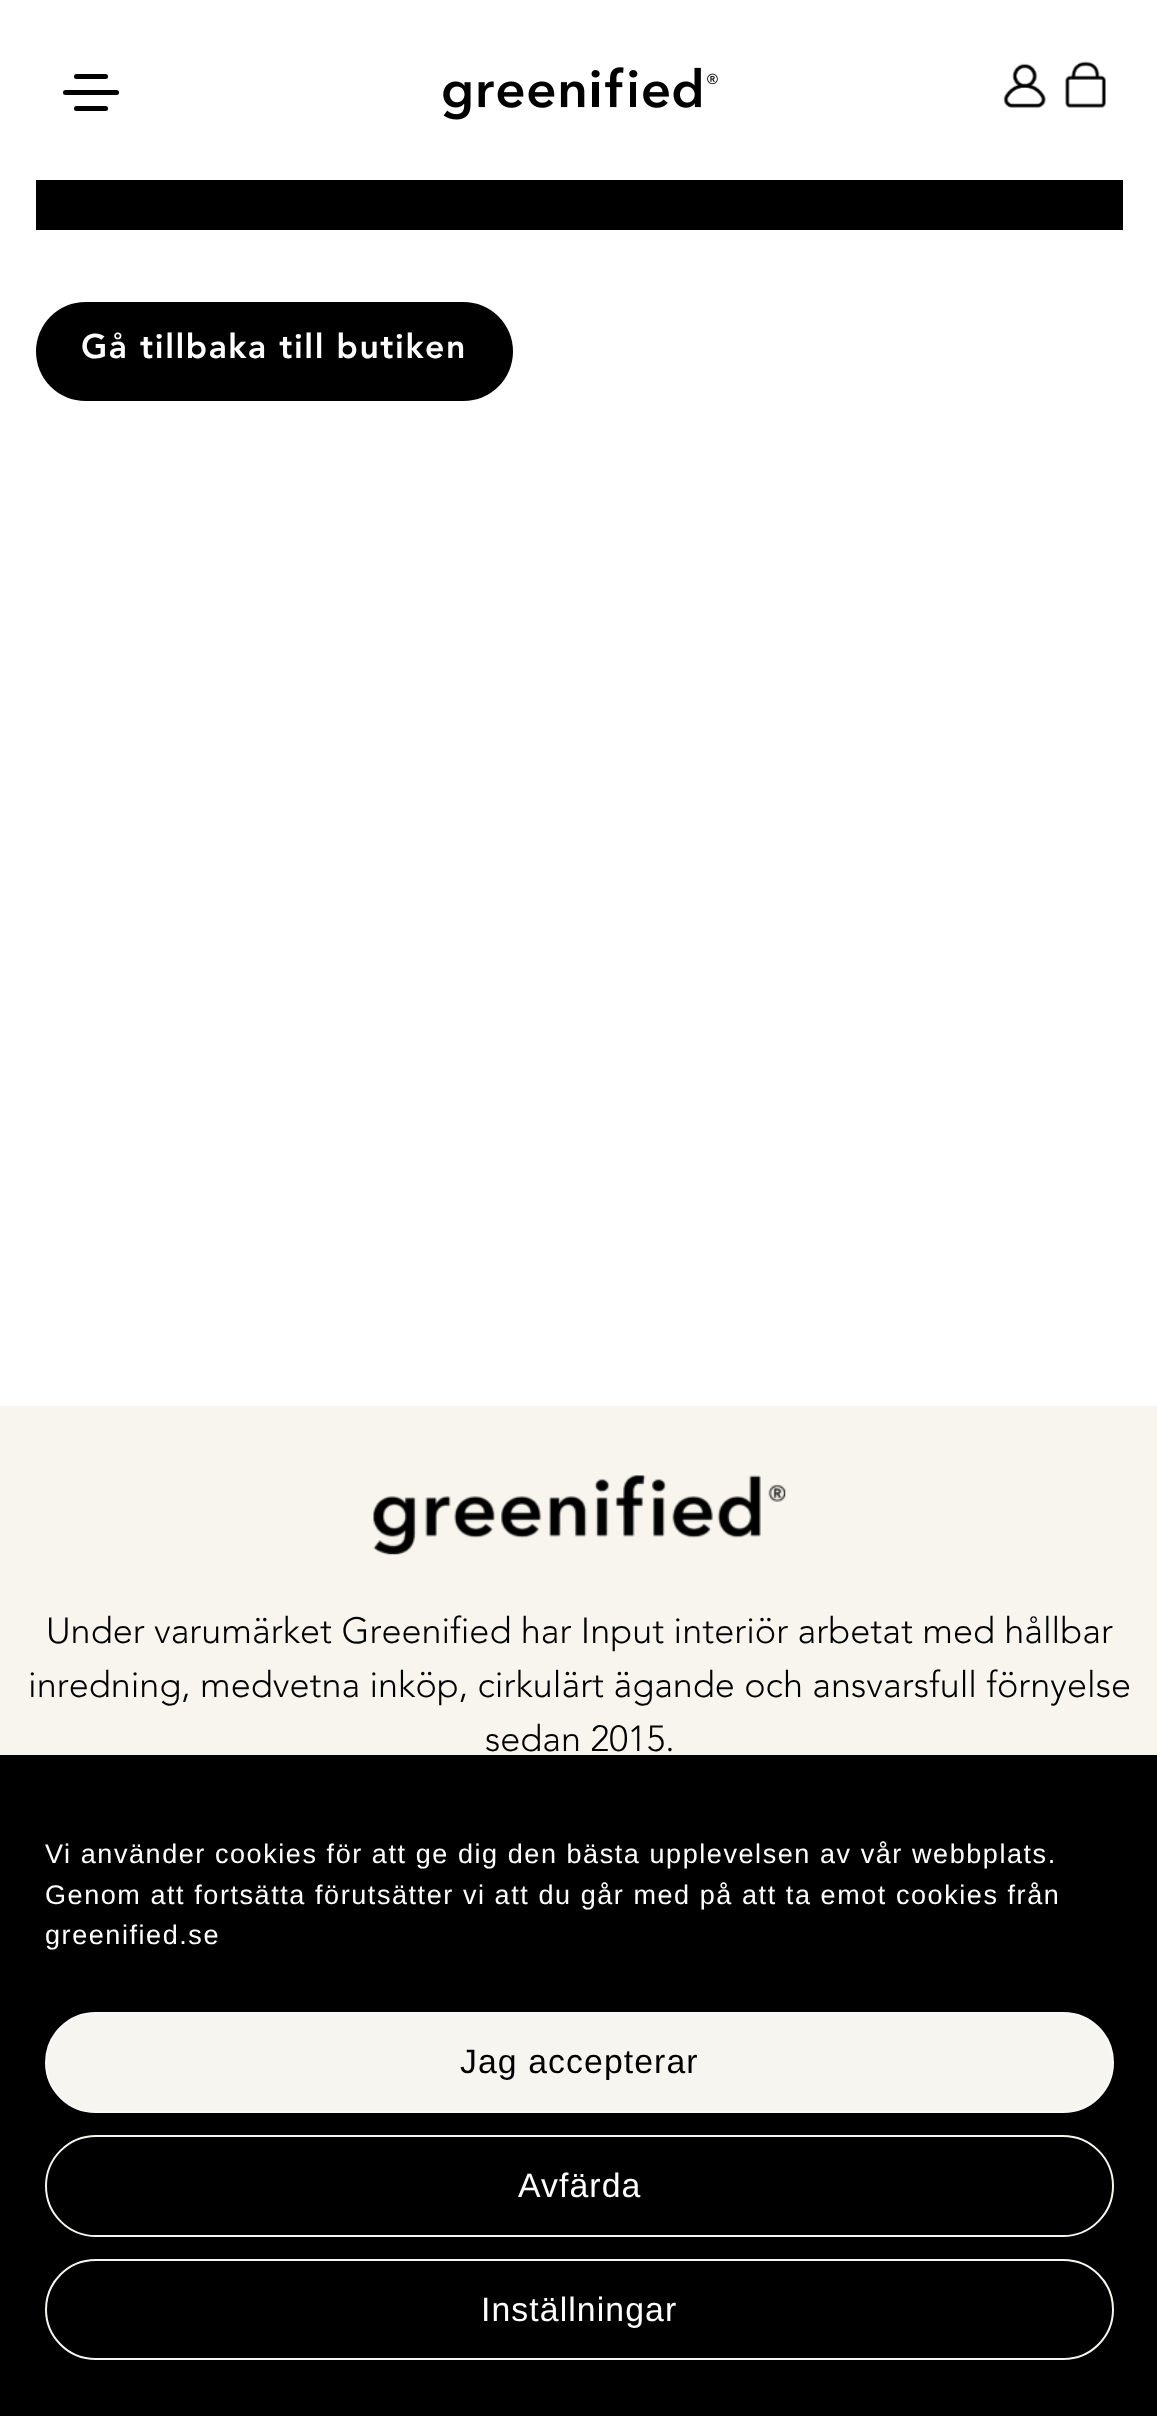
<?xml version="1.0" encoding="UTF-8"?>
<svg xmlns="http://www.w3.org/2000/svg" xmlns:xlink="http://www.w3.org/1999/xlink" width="1157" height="2416">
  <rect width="100%" height="100%" fill="#ffffff" />
  <rect x="74" y="74" width="34" height="5" rx="2.5" fill="#000000" />
  <rect x="63" y="90" width="56" height="5" rx="2.5" fill="#000000" />
  <rect x="74" y="106" width="34" height="5" rx="2.5" fill="#000000" />
  <image x="443" y="67" width="275" height="53" xlink:href="image1.png" />
  <image x="1003" y="63" width="43" height="45" xlink:href="image2.png" />
  <image x="1065" y="61" width="41" height="47" xlink:href="image3.png" />
  <rect x="36" y="180" width="1087" height="50" fill="#000000" />
  <rect x="36" y="302" width="477" height="99" rx="49.5" fill="#000000" />
  <rect y="1406" width="1157" height="349" fill="#f7f5ee" />
  <image x="373" y="1475" width="413" height="80" xlink:href="image4.png" />
  <rect y="1755" width="1157" height="661" fill="#000000" />
  <rect x="46" y="2013" width="1067" height="99" rx="49.5" fill="#f6f5ef" stroke="#f9f9f9" stroke-width="2" />
  <rect x="46" y="2136" width="1067" height="100" rx="50" fill="none" stroke="#f6f5ef" stroke-width="2" />
  <rect x="46" y="2260" width="1067" height="99" rx="49.5" fill="none" stroke="#f6f5ef" stroke-width="2" />
  <text x="81" y="358" style="font-family: 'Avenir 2'; font-size: 33.75px; letter-spacing: 1.57px; fill: #ffffff">Gå tillbaka till butiken</text>
  <text x="46" y="1643" style="font-family: Avenir; font-size: 36px; fill: #000000">Under varumärket Greenified har Input interiör arbetat med hållbar</text>
  <text x="28" y="1697" style="font-family: Avenir; font-size: 36px; fill: #000000">inredning, medvetna inköp, cirkulärt ägande och ansvarsfull förnyelse</text>
  <text x="485" y="1751" style="font-family: Avenir; font-size: 36px; fill: #000000">sedan 2015.</text>
  <text x="45" y="1863" style="font-family: Liberation Sans; font-size: 27px; letter-spacing: 1.57px; fill: #ffffff">Vi använder cookies för att ge dig den bästa upplevelsen av vår webbplats.</text>
  <text x="45" y="1904" style="font-family: Liberation Sans; font-size: 27px; letter-spacing: 1.57px; fill: #ffffff">Genom att fortsätta förutsätter vi att du går med på att ta emot cookies från</text>
  <text x="45" y="1944" style="font-family: Liberation Sans; font-size: 27px; letter-spacing: 1.57px; fill: #ffffff">greenified.se</text>
  <text x="460" y="2073" style="font-family: Liberation Sans; font-size: 33.75px; letter-spacing: 1.1px; fill: #000000">Jag accepterar</text>
  <text x="518" y="2197" style="font-family: Liberation Sans; font-size: 33.75px; letter-spacing: 1.1px; fill: #ffffff">Avfärda</text>
  <text x="481" y="2321" style="font-family: Liberation Sans; font-size: 33.75px; letter-spacing: 1.1px; fill: #ffffff">Inställningar</text>
</svg>
